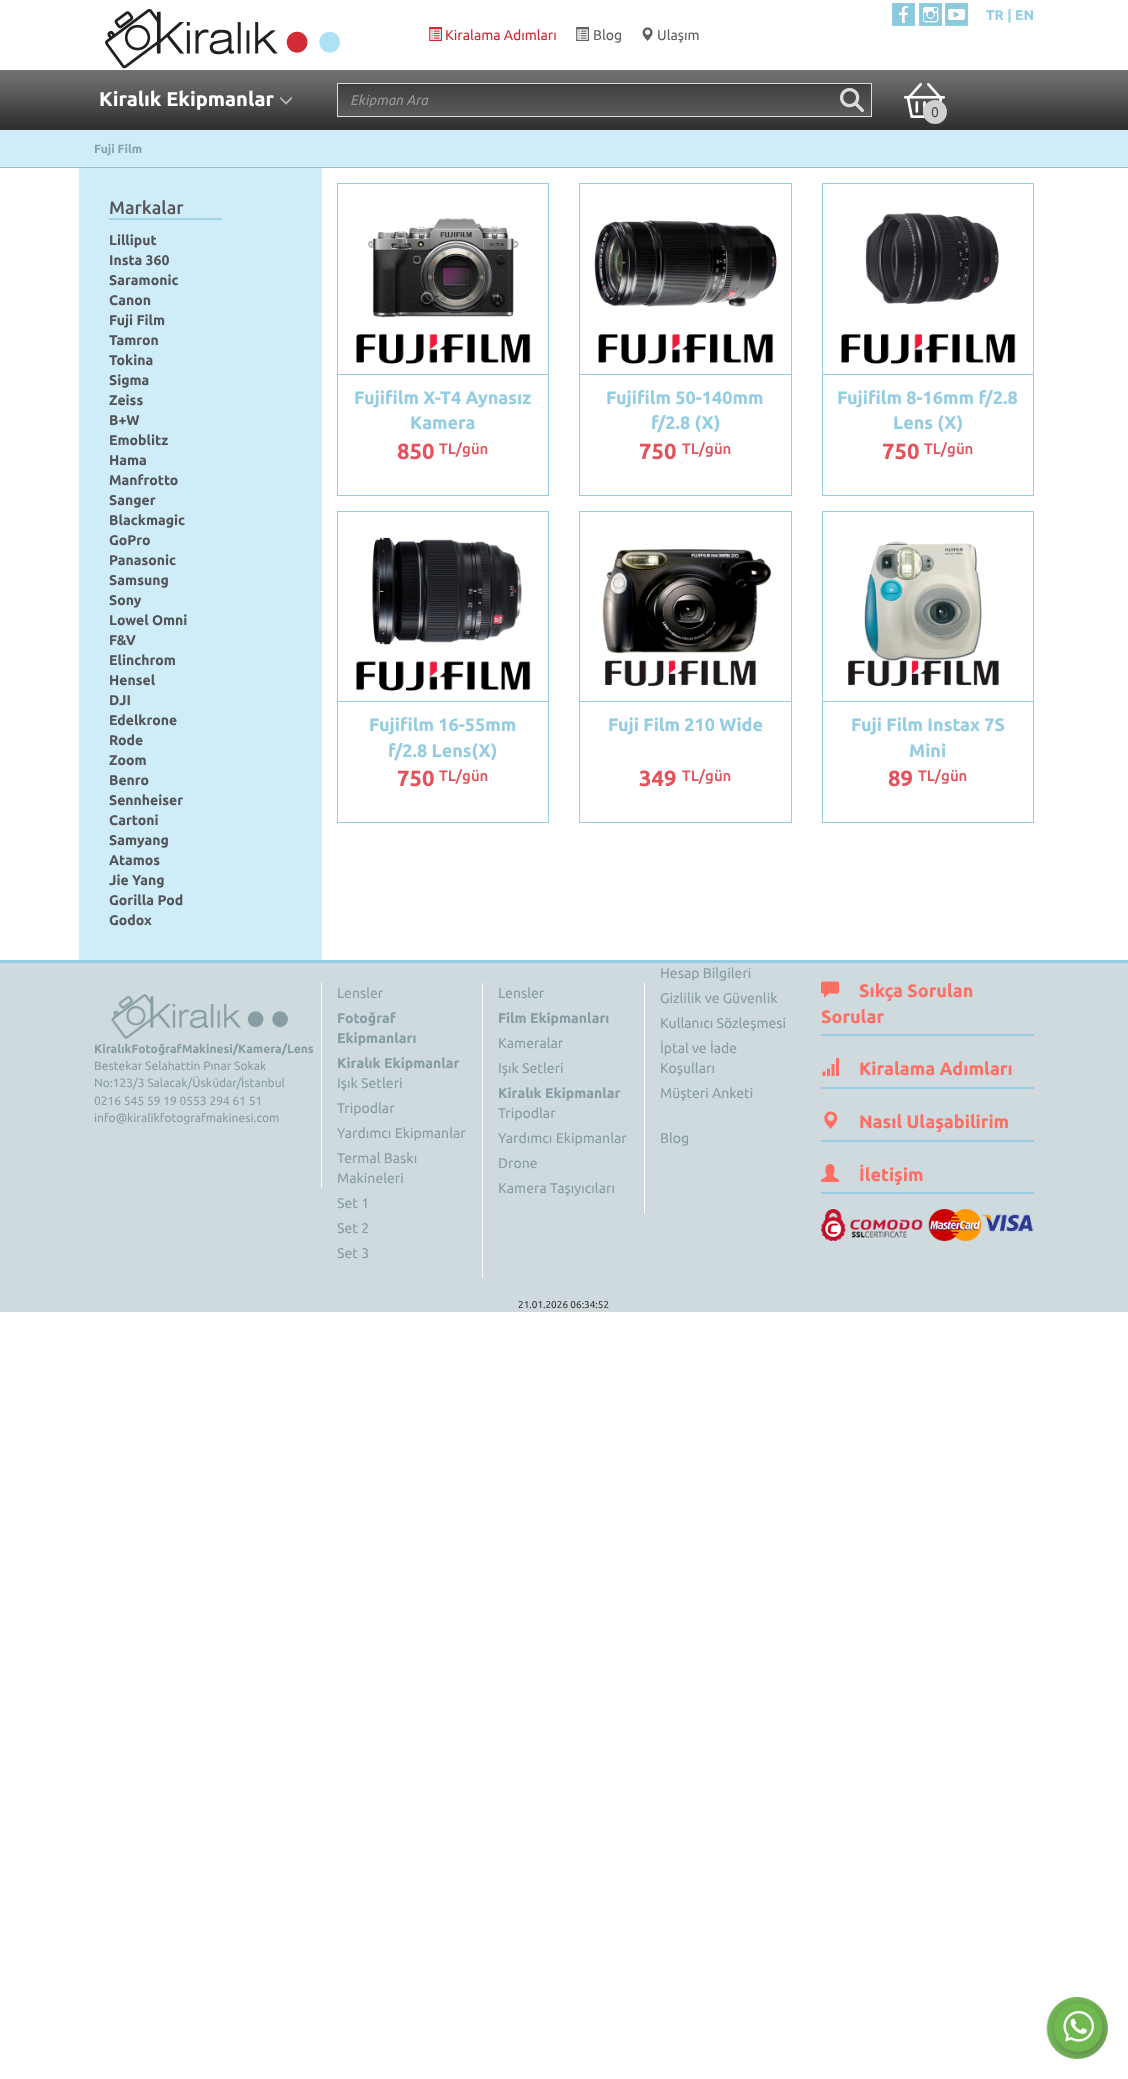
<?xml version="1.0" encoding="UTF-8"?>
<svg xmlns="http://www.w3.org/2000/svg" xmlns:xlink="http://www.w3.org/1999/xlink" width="1128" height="2079">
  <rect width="100%" height="100%" fill="#ffffff" />
  <image x="105" y="9" width="235" height="60" xlink:href="image1.png" />
  <image x="892" y="3" width="23" height="23" xlink:href="image2.png" />
  <image x="919" y="3" width="23" height="23" xlink:href="image3.png" />
  <image x="945" y="3" width="23" height="23" xlink:href="image4.png" />
  <image x="429" y="27" width="13" height="14" xlink:href="image5.png" />
  <image x="576" y="27" width="13" height="14" xlink:href="image6.png" />
  <image x="642" y="27" width="11" height="14" xlink:href="image7.png" />
  <image x="0" y="70" width="1128" height="60" xlink:href="image8.png" />
  <image x="280" y="96" width="12" height="9" xlink:href="image9.png" />
  <image x="338" y="85" width="533" height="31" xlink:href="image10.png" />
  <rect x="338" y="84" width="533" height="1" fill="#3c3c3b" />
  <rect x="337.5" y="83.5" width="534" height="33" fill="none" stroke="#dcdcdc" />
  <image x="840" y="88" width="24" height="24" xlink:href="image11.png" />
  <image x="904" y="83" width="41" height="35" xlink:href="image12.png" />
  <circle cx="935" cy="112" r="12" fill="#d0d0d0" />
  <rect y="130" width="1128" height="37" fill="#ceedf8" />
  <rect y="167" width="1128" height="1" fill="#9bbac4" />
  <rect x="79" y="168" width="243" height="792" fill="#ceedf8" />
  <rect x="109" y="218" width="113" height="2" fill="#a3d2e8" />
  <rect x="337.5" y="183.5" width="211" height="312" fill="none" stroke="#97cce5" />
  <image x="356" y="218" width="175" height="146" xlink:href="image13.png" />
  <rect x="338" y="374" width="210" height="1" fill="#97cce5" />
  <rect x="579.5" y="183.5" width="212" height="312" fill="none" stroke="#97cce5" />
  <image x="594" y="220" width="183" height="144" xlink:href="image14.png" />
  <rect x="580" y="374" width="211" height="1" fill="#97cce5" />
  <rect x="822.5" y="183.5" width="211" height="312" fill="none" stroke="#97cce5" />
  <image x="841" y="212" width="175" height="152" xlink:href="image15.png" />
  <rect x="823" y="374" width="210" height="1" fill="#97cce5" />
  <rect x="337.5" y="511.5" width="211" height="311" fill="none" stroke="#97cce5" />
  <image x="356" y="537" width="175" height="154" xlink:href="image16.png" />
  <rect x="338" y="701" width="210" height="1" fill="#97cce5" />
  <rect x="579.5" y="511.5" width="212" height="311" fill="none" stroke="#97cce5" />
  <image x="602" y="549" width="170" height="137" xlink:href="image17.png" />
  <rect x="580" y="701" width="211" height="1" fill="#97cce5" />
  <rect x="822.5" y="511.5" width="211" height="311" fill="none" stroke="#97cce5" />
  <image x="848" y="541" width="151" height="145" xlink:href="image18.png" />
  <rect x="823" y="701" width="210" height="1" fill="#97cce5" />
  <rect y="960" width="1128" height="3" fill="#97cce5" />
  <rect y="963" width="1128" height="349" fill="#cedade" />
  <rect x="321" y="983" width="1" height="205" fill="#ffffff" />
  <image x="111" y="994" width="177" height="45" xlink:href="image19.png" />
  <rect x="482" y="983" width="1" height="295" fill="#ffffff" />
  <rect x="644" y="983" width="1" height="230" fill="#ffffff" />
  <rect x="821" y="1034" width="213" height="2" fill="#97cce5" />
  <image x="821" y="981" width="18" height="17" xlink:href="image20.png" />
  <rect x="821" y="1087" width="213" height="2" fill="#97cce5" />
  <image x="822" y="1058" width="17" height="18" xlink:href="image21.png" />
  <rect x="821" y="1140" width="213" height="2" fill="#97cce5" />
  <image x="824" y="1111" width="14" height="18" xlink:href="image22.png" />
  <rect x="821" y="1192" width="213" height="2" fill="#97cce5" />
  <image x="821" y="1164" width="18" height="18" xlink:href="image23.png" />
  <image x="821" y="1209" width="213" height="32" xlink:href="image24.png" />
  <image x="1046" y="1997" width="62" height="62" xlink:href="image25.png" />
  <text x="986" y="20" style="font-family: Ubuntu; font-size: 14px; font-weight: bold; fill: #94cde2">TR |</text>
  <text x="1015" y="20" style="font-family: Ubuntu; font-size: 14px; font-weight: bold; fill: #94cde2">EN</text>
  <text x="445" y="40" style="font-family: Ubuntu; font-size: 14px; fill: #cf2b34">Kiralama Adımları</text>
  <text x="593" y="40" style="font-family: Ubuntu; font-size: 14px; fill: #5f5f5f">Blog</text>
  <text x="657" y="40" style="font-family: Ubuntu; font-size: 14px; fill: #5f5f5f">Ulaşım</text>
  <text x="99" y="106" style="font-family: Ubuntu; font-size: 20px; font-weight: bold; fill: #ffffff">Kiralık Ekipmanlar</text>
  <text x="350" y="105" style="font-family: Ubuntu; font-size: 14px; font-style: italic; fill: #999999">Ekipman Ara</text>
  <text x="931" y="117" style="font-family: Ubuntu; font-size: 14px; fill: #4b4b4b">0</text>
  <text x="94" y="153" style="font-family: Ubuntu; font-size: 12px; font-weight: bold; fill: #86a3ae">Fuji Film</text>
  <text x="109" y="214" style="font-family: Ubuntu; font-size: 18px; font-weight: 500; fill: #545459">Markalar</text>
  <text x="109" y="245" style="font-family: Ubuntu; font-size: 14px; font-weight: bold; fill: #545459">Lilliput</text>
  <text x="109" y="265" style="font-family: Ubuntu; font-size: 14px; font-weight: bold; fill: #545459">Insta 360</text>
  <text x="109" y="285" style="font-family: Ubuntu; font-size: 14px; font-weight: bold; fill: #545459">Saramonic</text>
  <text x="109" y="305" style="font-family: Ubuntu; font-size: 14px; font-weight: bold; fill: #545459">Canon</text>
  <text x="109" y="325" style="font-family: Ubuntu; font-size: 14px; font-weight: bold; fill: #545459">Fuji Film</text>
  <text x="109" y="345" style="font-family: Ubuntu; font-size: 14px; font-weight: bold; fill: #545459">Tamron</text>
  <text x="109" y="365" style="font-family: Ubuntu; font-size: 14px; font-weight: bold; fill: #545459">Tokina</text>
  <text x="109" y="385" style="font-family: Ubuntu; font-size: 14px; font-weight: bold; fill: #545459">Sigma</text>
  <text x="109" y="405" style="font-family: Ubuntu; font-size: 14px; font-weight: bold; fill: #545459">Zeiss</text>
  <text x="109" y="425" style="font-family: Ubuntu; font-size: 14px; font-weight: bold; fill: #545459">B+W</text>
  <text x="109" y="445" style="font-family: Ubuntu; font-size: 14px; font-weight: bold; fill: #545459">Emoblitz</text>
  <text x="109" y="465" style="font-family: Ubuntu; font-size: 14px; font-weight: bold; fill: #545459">Hama</text>
  <text x="109" y="485" style="font-family: Ubuntu; font-size: 14px; font-weight: bold; fill: #545459">Manfrotto</text>
  <text x="109" y="505" style="font-family: Ubuntu; font-size: 14px; font-weight: bold; fill: #545459">Sanger</text>
  <text x="109" y="525" style="font-family: Ubuntu; font-size: 14px; font-weight: bold; fill: #545459">Blackmagic</text>
  <text x="109" y="545" style="font-family: Ubuntu; font-size: 14px; font-weight: bold; fill: #545459">GoPro</text>
  <text x="109" y="565" style="font-family: Ubuntu; font-size: 14px; font-weight: bold; fill: #545459">Panasonic</text>
  <text x="109" y="585" style="font-family: Ubuntu; font-size: 14px; font-weight: bold; fill: #545459">Samsung</text>
  <text x="109" y="605" style="font-family: Ubuntu; font-size: 14px; font-weight: bold; fill: #545459">Sony</text>
  <text x="109" y="625" style="font-family: Ubuntu; font-size: 14px; font-weight: bold; fill: #545459">Lowel Omni</text>
  <text x="109" y="645" style="font-family: Ubuntu; font-size: 14px; font-weight: bold; fill: #545459">F&amp;V</text>
  <text x="109" y="665" style="font-family: Ubuntu; font-size: 14px; font-weight: bold; fill: #545459">Elinchrom</text>
  <text x="109" y="685" style="font-family: Ubuntu; font-size: 14px; font-weight: bold; fill: #545459">Hensel</text>
  <text x="109" y="705" style="font-family: Ubuntu; font-size: 14px; font-weight: bold; fill: #545459">DJI</text>
  <text x="109" y="725" style="font-family: Ubuntu; font-size: 14px; font-weight: bold; fill: #545459">Edelkrone</text>
  <text x="109" y="745" style="font-family: Ubuntu; font-size: 14px; font-weight: bold; fill: #545459">Rode</text>
  <text x="109" y="765" style="font-family: Ubuntu; font-size: 14px; font-weight: bold; fill: #545459">Zoom</text>
  <text x="109" y="785" style="font-family: Ubuntu; font-size: 14px; font-weight: bold; fill: #545459">Benro</text>
  <text x="109" y="805" style="font-family: Ubuntu; font-size: 14px; font-weight: bold; fill: #545459">Sennheiser</text>
  <text x="109" y="825" style="font-family: Ubuntu; font-size: 14px; font-weight: bold; fill: #545459">Cartoni</text>
  <text x="109" y="845" style="font-family: Ubuntu; font-size: 14px; font-weight: bold; fill: #545459">Samyang</text>
  <text x="109" y="865" style="font-family: Ubuntu; font-size: 14px; font-weight: bold; fill: #545459">Atamos</text>
  <text x="109" y="885" style="font-family: Ubuntu; font-size: 14px; font-weight: bold; fill: #545459">Jie Yang</text>
  <text x="109" y="905" style="font-family: Ubuntu; font-size: 14px; font-weight: bold; fill: #545459">Gorilla Pod</text>
  <text x="109" y="925" style="font-family: Ubuntu; font-size: 14px; font-weight: bold; fill: #545459">Godox</text>
  <text x="354" y="404" style="font-family: Ubuntu; font-size: 18px; font-weight: bold; fill: #94cde2">Fujifilm X-T4 Aynasız</text>
  <text x="410" y="429" style="font-family: Ubuntu; font-size: 18px; font-weight: bold; fill: #94cde2">Kamera</text>
  <text x="397" y="459" style="font-family: Ubuntu; font-size: 22px; font-weight: bold; fill: #e3535c">850</text>
  <text x="439" y="454" style="font-family: Ubuntu; font-size: 15px; font-weight: 500; fill: #e3535c">TL/gün</text>
  <text x="606" y="404" style="font-family: Ubuntu; font-size: 18px; font-weight: bold; fill: #94cde2">Fujifilm 50-140mm</text>
  <text x="651" y="429" style="font-family: Ubuntu; font-size: 18px; font-weight: bold; fill: #94cde2">f/2.8 (X)</text>
  <text x="639" y="459" style="font-family: Ubuntu; font-size: 22px; font-weight: bold; fill: #e3535c">750</text>
  <text x="682" y="454" style="font-family: Ubuntu; font-size: 15px; font-weight: 500; fill: #e3535c">TL/gün</text>
  <text x="837" y="404" style="font-family: Ubuntu; font-size: 18px; font-weight: bold; fill: #94cde2">Fujifilm 8-16mm f/2.8</text>
  <text x="893" y="429" style="font-family: Ubuntu; font-size: 18px; font-weight: bold; fill: #94cde2">Lens (X)</text>
  <text x="882" y="459" style="font-family: Ubuntu; font-size: 22px; font-weight: bold; fill: #e3535c">750</text>
  <text x="924" y="454" style="font-family: Ubuntu; font-size: 15px; font-weight: 500; fill: #e3535c">TL/gün</text>
  <text x="369" y="731" style="font-family: Ubuntu; font-size: 18px; font-weight: bold; fill: #94cde2">Fujifilm 16-55mm</text>
  <text x="388" y="757" style="font-family: Ubuntu; font-size: 18px; font-weight: bold; fill: #94cde2">f/2.8 Lens(X)</text>
  <text x="397" y="786" style="font-family: Ubuntu; font-size: 22px; font-weight: bold; fill: #e3535c">750</text>
  <text x="439" y="781" style="font-family: Ubuntu; font-size: 15px; font-weight: 500; fill: #e3535c">TL/gün</text>
  <text x="608" y="731" style="font-family: Ubuntu; font-size: 18px; font-weight: bold; fill: #94cde2">Fuji Film 210 Wide</text>
  <text x="639" y="786" style="font-family: Ubuntu; font-size: 22px; font-weight: bold; fill: #e3535c">349</text>
  <text x="682" y="781" style="font-family: Ubuntu; font-size: 15px; font-weight: 500; fill: #e3535c">TL/gün</text>
  <text x="851" y="731" style="font-family: Ubuntu; font-size: 18px; font-weight: bold; fill: #94cde2">Fuji Film Instax 7S</text>
  <text x="909" y="757" style="font-family: Ubuntu; font-size: 18px; font-weight: bold; fill: #94cde2">Mini</text>
  <text x="888" y="786" style="font-family: Ubuntu; font-size: 22px; font-weight: bold; fill: #e3535c">89</text>
  <text x="918" y="781" style="font-family: Ubuntu; font-size: 15px; font-weight: 500; fill: #e3535c">TL/gün</text>
  <text x="94" y="1053" style="font-family: Ubuntu; font-size: 12px; font-weight: bold; fill: #879da4">KiralıkFotoğrafMakinesi/Kamera/Lens</text>
  <text x="94" y="1070" style="font-family: Ubuntu; font-size: 12px; fill: #879da4">Bestekar Selahattin Pınar Sokak</text>
  <text x="94" y="1087" style="font-family: Ubuntu; font-size: 12px; fill: #879da4">No:123/3 Salacak/Üsküdar/İstanbul</text>
  <text x="94" y="1105" style="font-family: Ubuntu; font-size: 12px; fill: #879da4">0216 545 59 19 0553 294 61 51</text>
  <text x="94" y="1122" style="font-family: Ubuntu; font-size: 12px; fill: #879da4">info@kiralikfotografmakinesi.com</text>
  <text x="337" y="998" style="font-family: Ubuntu; font-size: 14px; fill: #879da4">Lensler</text>
  <text x="337" y="1023" style="font-family: Ubuntu; font-size: 14px; font-weight: bold; fill: #879da4">Fotoğraf</text>
  <text x="337" y="1043" style="font-family: Ubuntu; font-size: 14px; font-weight: bold; fill: #879da4">Ekipmanları</text>
  <text x="337" y="1068" style="font-family: Ubuntu; font-size: 14px; font-weight: bold; fill: #879da4">Kiralık Ekipmanlar</text>
  <text x="337" y="1088" style="font-family: Ubuntu; font-size: 14px; fill: #879da4">Işık Setleri</text>
  <text x="337" y="1113" style="font-family: Ubuntu; font-size: 14px; fill: #879da4">Tripodlar</text>
  <text x="337" y="1138" style="font-family: Ubuntu; font-size: 14px; fill: #879da4">Yardımcı Ekipmanlar</text>
  <text x="337" y="1163" style="font-family: Ubuntu; font-size: 14px; fill: #879da4">Termal Baskı</text>
  <text x="337" y="1183" style="font-family: Ubuntu; font-size: 14px; fill: #879da4">Makineleri</text>
  <text x="337" y="1208" style="font-family: Ubuntu; font-size: 14px; fill: #879da4">Set 1</text>
  <text x="337" y="1233" style="font-family: Ubuntu; font-size: 14px; fill: #879da4">Set 2</text>
  <text x="337" y="1258" style="font-family: Ubuntu; font-size: 14px; fill: #879da4">Set 3</text>
  <text x="498" y="998" style="font-family: Ubuntu; font-size: 14px; fill: #879da4">Lensler</text>
  <text x="498" y="1023" style="font-family: Ubuntu; font-size: 14px; font-weight: bold; fill: #879da4">Film Ekipmanları</text>
  <text x="498" y="1048" style="font-family: Ubuntu; font-size: 14px; fill: #879da4">Kameralar</text>
  <text x="498" y="1073" style="font-family: Ubuntu; font-size: 14px; fill: #879da4">Işık Setleri</text>
  <text x="498" y="1098" style="font-family: Ubuntu; font-size: 14px; font-weight: bold; fill: #879da4">Kiralık Ekipmanlar</text>
  <text x="498" y="1118" style="font-family: Ubuntu; font-size: 14px; fill: #879da4">Tripodlar</text>
  <text x="498" y="1143" style="font-family: Ubuntu; font-size: 14px; fill: #879da4">Yardımcı Ekipmanlar</text>
  <text x="498" y="1168" style="font-family: Ubuntu; font-size: 14px; fill: #879da4">Drone</text>
  <text x="498" y="1193" style="font-family: Ubuntu; font-size: 14px; fill: #879da4">Kamera Taşıyıcıları</text>
  <text x="660" y="978" style="font-family: Ubuntu; font-size: 14px; fill: #879da4">Hesap Bilgileri</text>
  <text x="660" y="1003" style="font-family: Ubuntu; font-size: 14px; fill: #879da4">Gizlilik ve Güvenlik</text>
  <text x="660" y="1028" style="font-family: Ubuntu; font-size: 14px; fill: #879da4">Kullanıcı Sözleşmesi</text>
  <text x="660" y="1053" style="font-family: Ubuntu; font-size: 14px; fill: #879da4">İptal ve İade</text>
  <text x="660" y="1073" style="font-family: Ubuntu; font-size: 14px; fill: #879da4">Koşulları</text>
  <text x="660" y="1098" style="font-family: Ubuntu; font-size: 14px; fill: #879da4">Müşteri Anketi</text>
  <text x="660" y="1143" style="font-family: Ubuntu; font-size: 14px; fill: #879da4">Blog</text>
  <text x="859" y="997" style="font-family: Ubuntu; font-size: 18px; font-weight: bold; fill: #ff6e63">Sıkça Sorulan</text>
  <text x="821" y="1023" style="font-family: Ubuntu; font-size: 18px; font-weight: bold; fill: #ff6e63">Sorular</text>
  <text x="859" y="1075" style="font-family: Ubuntu; font-size: 18px; font-weight: bold; fill: #ff6e63">Kiralama Adımları</text>
  <text x="859" y="1128" style="font-family: Ubuntu; font-size: 18px; font-weight: bold; fill: #ff6e63">Nasıl Ulaşabilirim</text>
  <text x="859" y="1181" style="font-family: Ubuntu; font-size: 18px; font-weight: bold; fill: #ff6e63">İletişim</text>
  <text x="518" y="1308" style="font-family: Ubuntu; font-size: 10px; fill: #333333">21.01.2026 06:34:52</text>
</svg>
